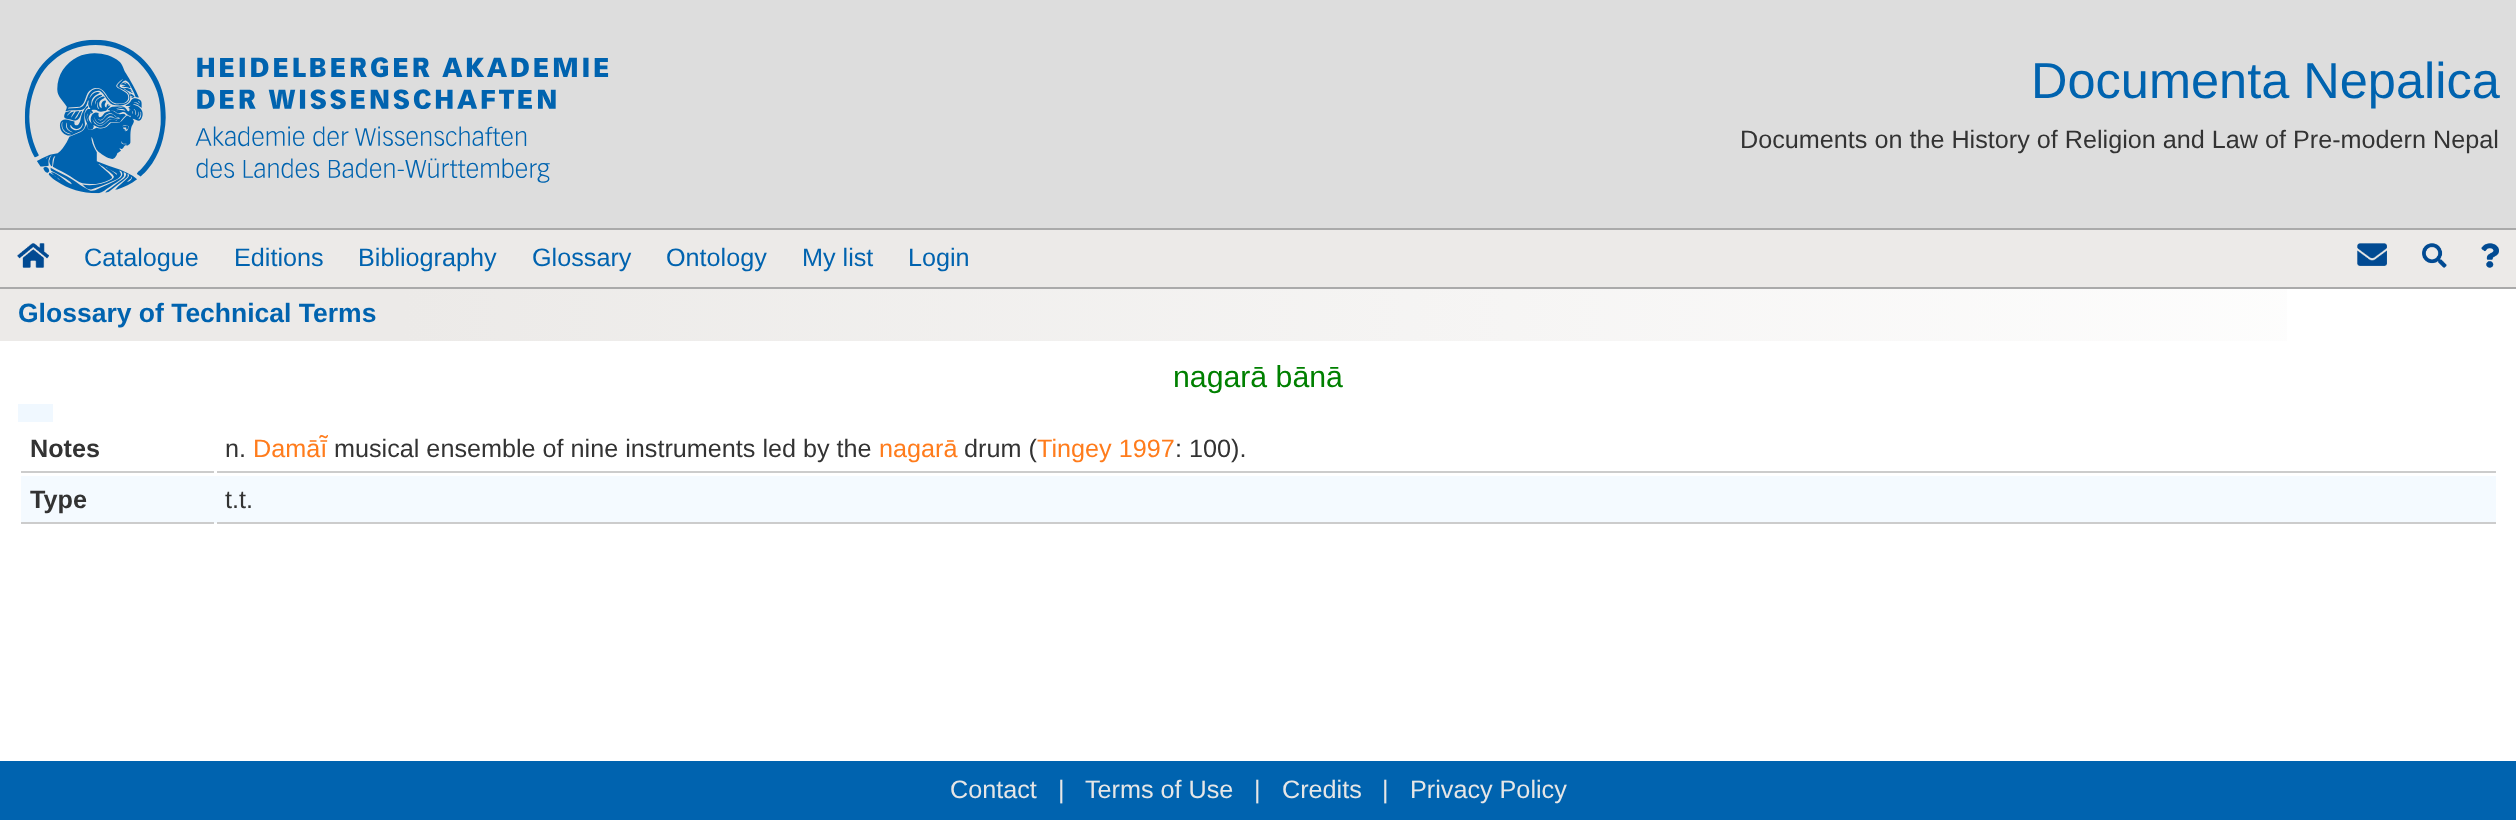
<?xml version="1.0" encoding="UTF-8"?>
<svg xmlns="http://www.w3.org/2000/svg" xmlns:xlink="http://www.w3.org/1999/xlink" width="2516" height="820">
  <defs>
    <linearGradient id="g1" gradientUnits="userSpaceOnUse" x1="0" y1="315" x2="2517" y2="315"><stop offset="0.16" stop-color="#eceae8" /><stop offset="1" stop-color="#ffffff" /></linearGradient>
  </defs>
  <rect width="100%" height="100%" fill="#ffffff" />
  <rect width="2516" height="228" fill="#dddddd" />
  <image x="24" y="39" width="585" height="155" xlink:href="image1.png" />
  <rect y="230" width="2516" height="57" fill="#eceae8" />
  <rect y="228" width="2516" height="2" fill="#aaaaaa" />
  <rect y="287" width="2516" height="2" fill="#aaaaaa" />
  <image x="17" y="243" width="32" height="25" xlink:href="image2.png" />
  <image x="2357" y="243" width="30" height="23" xlink:href="image3.png" />
  <image x="2422" y="243" width="25" height="25" xlink:href="image4.png" />
  <image x="2481" y="243" width="18" height="25" xlink:href="image5.png" />
  <rect y="289" width="2287" height="52" fill="url(#g1)" />
  <rect x="18" y="404" width="35" height="18" fill="#f0f8ff" />
  <rect x="21" y="471" width="193" height="2" fill="#cccccc" />
  <rect x="217" y="471" width="2279" height="2" fill="#cccccc" />
  <rect x="21" y="476" width="2475" height="47" fill="#f4faff" />
  <rect x="21" y="522" width="193" height="2" fill="#cccccc" />
  <rect x="217" y="522" width="2279" height="2" fill="#cccccc" />
  <rect y="761" width="2516" height="59" fill="#0063af" />
  <text x="2031" y="98" style="font-family: Liberation Sans; font-size: 50.5px; fill: #0063af">Documenta Nepalica</text>
  <text x="1740" y="148" style="font-family: Liberation Sans; font-size: 25.2px; fill: #333333">Documents on the History of Religion and Law of Pre-modern Nepal</text>
  <text x="84" y="266" style="font-family: Liberation Sans; font-size: 25.2px; fill: #0063af">Catalogue</text>
  <text x="234" y="266" style="font-family: Liberation Sans; font-size: 25.2px; fill: #0063af">Editions</text>
  <text x="358" y="266" style="font-family: Liberation Sans; font-size: 25.2px; fill: #0063af">Bibliography</text>
  <text x="532" y="266" style="font-family: Liberation Sans; font-size: 25.2px; fill: #0063af">Glossary</text>
  <text x="666" y="266" style="font-family: Liberation Sans; font-size: 25.2px; fill: #0063af">Ontology</text>
  <text x="802" y="266" style="font-family: Liberation Sans; font-size: 25.2px; fill: #0063af">My list</text>
  <text x="908" y="266" style="font-family: Liberation Sans; font-size: 25.2px; fill: #0063af">Login</text>
  <text x="18" y="322" style="font-family: Liberation Sans; font-size: 26.5px; font-weight: bold; fill: #0063af">Glossary of Technical Terms</text>
  <text x="1173" y="387" style="font-family: Liberation Sans; font-size: 30.25px; fill: #008000">nagarā bānā</text>
  <text x="30" y="457" style="font-family: Liberation Sans; font-size: 25.2px; font-weight: bold; fill: #333333">Notes</text>
  <text x="225" y="457" style="font-family: Liberation Sans; font-size: 25.2px; fill: #333333">n.</text>
  <text x="253" y="457" style="font-family: Liberation Sans; font-size: 25.2px; fill: #ff7c1c">Damāī̃</text>
  <text x="334" y="457" style="font-family: Liberation Sans; font-size: 25.2px; fill: #333333">musical ensemble of nine instruments led by the</text>
  <text x="879" y="457" style="font-family: Liberation Sans; font-size: 25.2px; fill: #ff7c1c">nagarā</text>
  <text x="964" y="457" style="font-family: Liberation Sans; font-size: 25.2px; fill: #333333">drum (</text>
  <text x="1037" y="457" style="font-family: Liberation Sans; font-size: 25.2px; fill: #ff7c1c">Tingey 1997</text>
  <text x="1175" y="457" style="font-family: Liberation Sans; font-size: 25.2px; fill: #333333">: 100).</text>
  <text x="30" y="508" style="font-family: Liberation Sans; font-size: 25.2px; font-weight: bold; fill: #333333">Type</text>
  <text x="225" y="508" style="font-family: Liberation Sans; font-size: 25.2px; fill: #333333">t.t.</text>
  <text x="950" y="798" style="font-family: Liberation Sans; font-size: 25.2px; fill: #e6e6e6">Contact</text>
  <text x="1058" y="798" style="font-family: Liberation Sans; font-size: 25.2px; fill: #e6e6e6">|</text>
  <text x="1085" y="798" style="font-family: Liberation Sans; font-size: 25.2px; fill: #e6e6e6">Terms of Use</text>
  <text x="1254" y="798" style="font-family: Liberation Sans; font-size: 25.2px; fill: #e6e6e6">|</text>
  <text x="1282" y="798" style="font-family: Liberation Sans; font-size: 25.2px; fill: #e6e6e6">Credits</text>
  <text x="1382" y="798" style="font-family: Liberation Sans; font-size: 25.2px; fill: #e6e6e6">|</text>
  <text x="1410" y="798" style="font-family: Liberation Sans; font-size: 25.2px; fill: #e6e6e6">Privacy Policy</text>
</svg>
